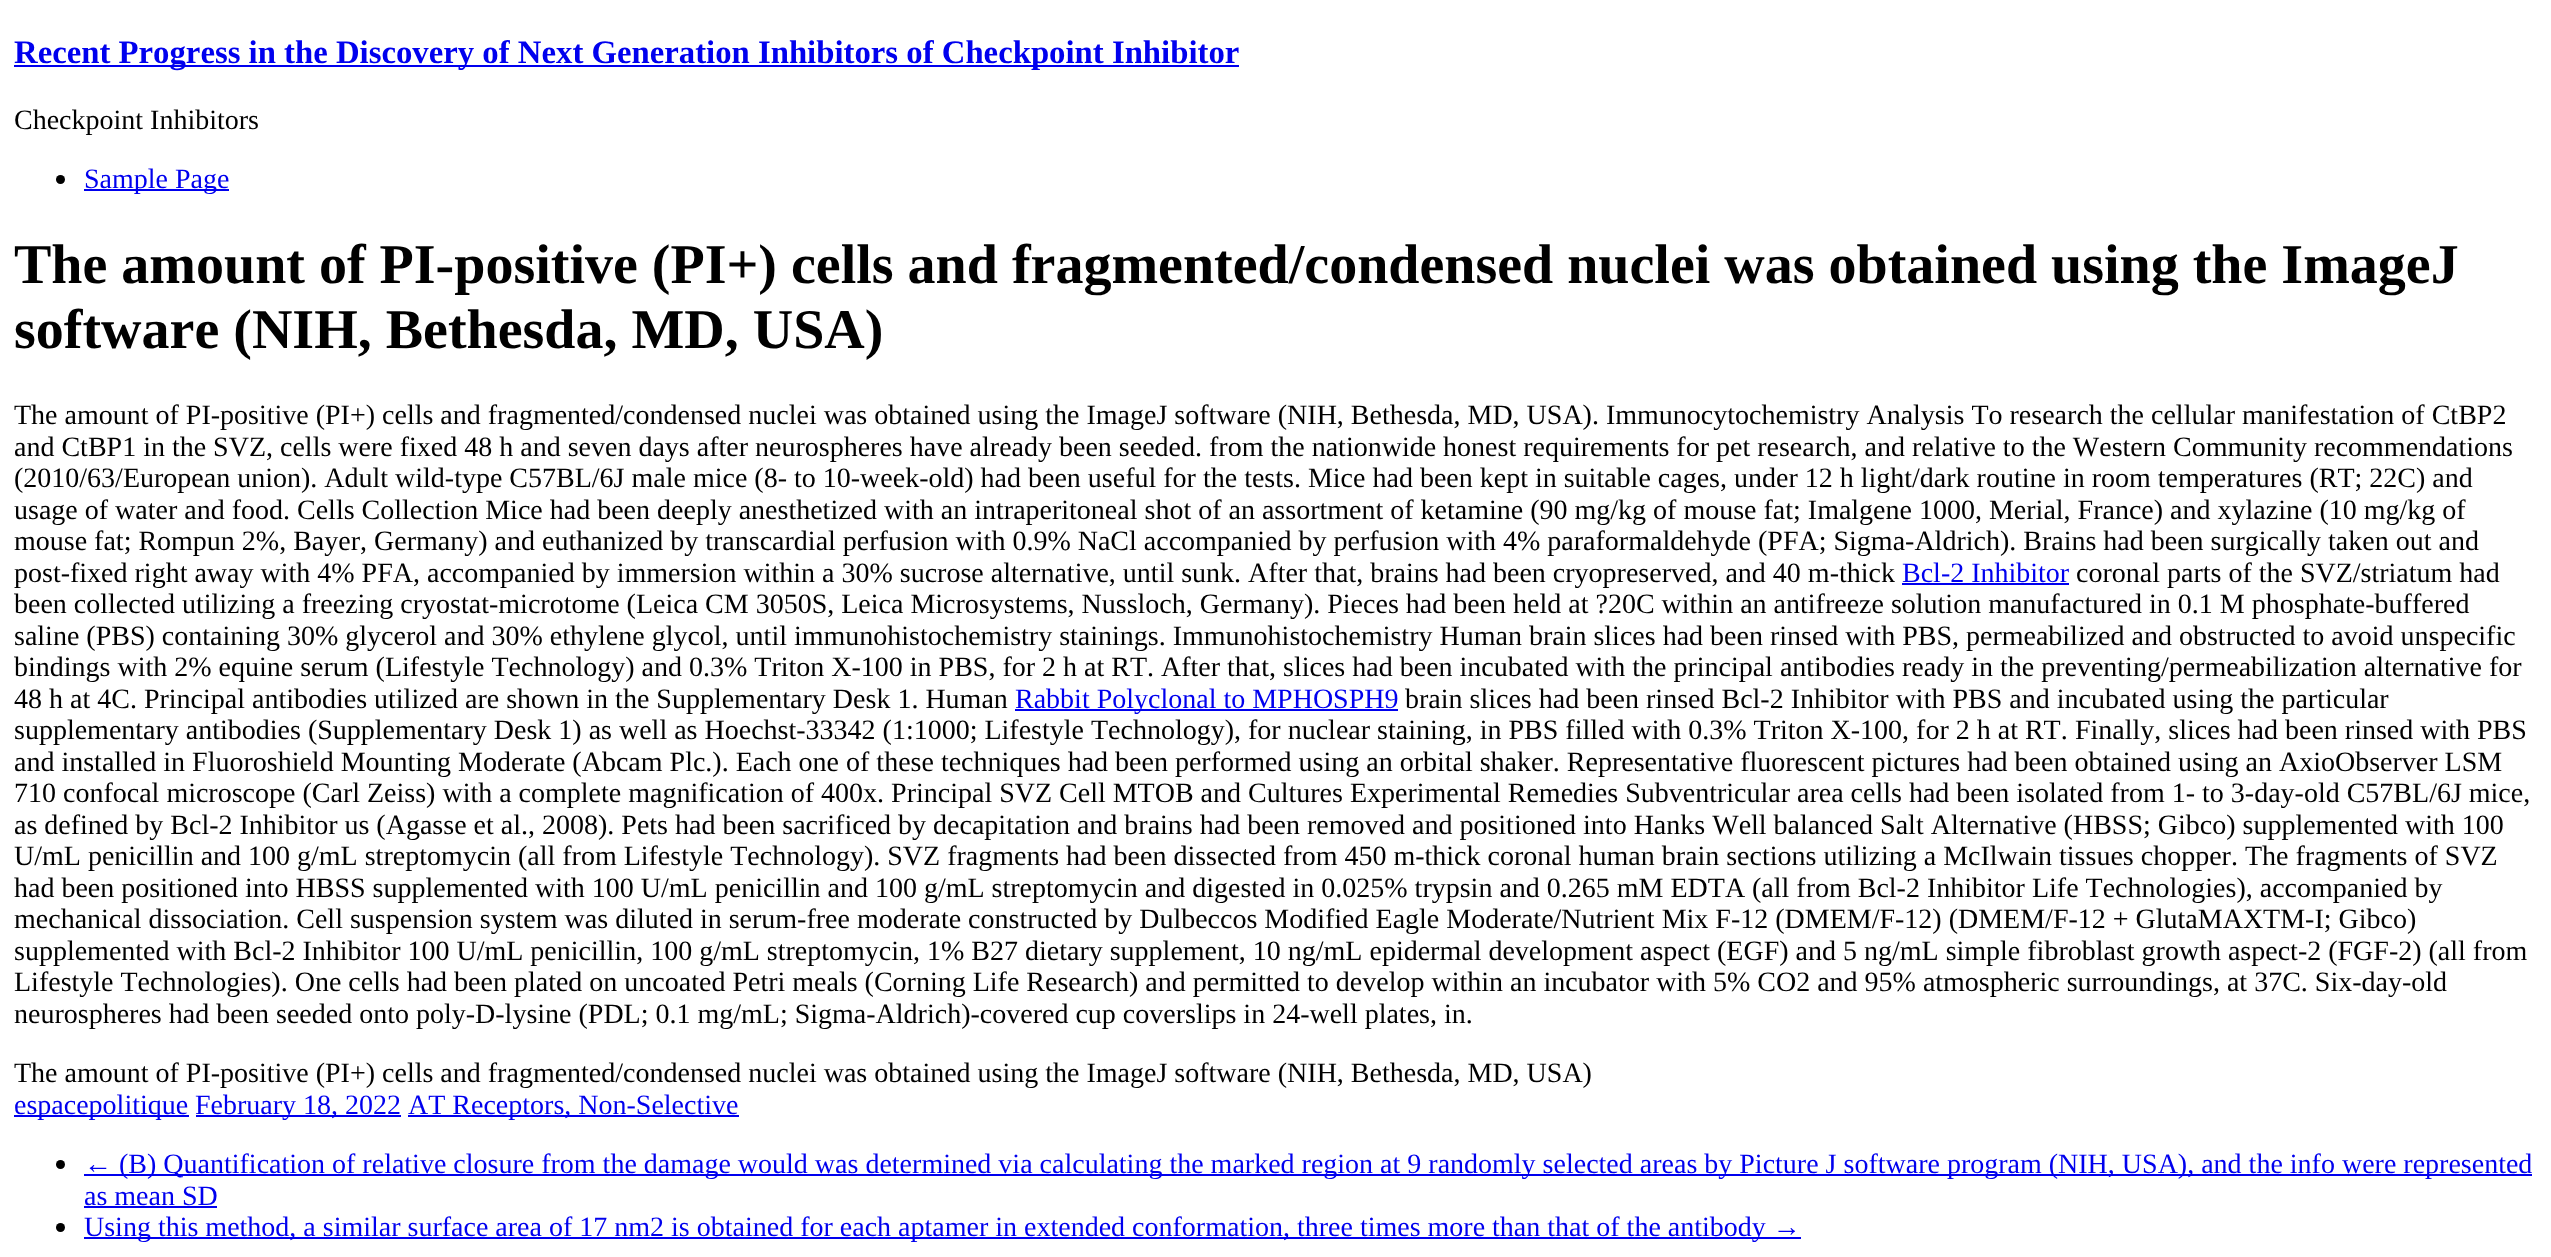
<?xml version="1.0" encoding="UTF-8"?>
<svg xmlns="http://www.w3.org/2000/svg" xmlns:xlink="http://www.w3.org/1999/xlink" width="2551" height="1257">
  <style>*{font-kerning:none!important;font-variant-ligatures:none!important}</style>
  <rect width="100%" height="100%" fill="#ffffff" />
  <rect x="14" y="65" width="1225" height="2" fill="#0000ee" />
  <circle cx="60.5" cy="179.5" r="4.5" fill="#000000" />
  <rect x="84" y="189" width="145" height="2" fill="#0000ee" />
  <rect x="1902" y="583" width="167" height="2" fill="#0000ee" />
  <rect x="1015" y="709" width="383" height="2" fill="#0000ee" />
  <rect x="14" y="1115" width="175" height="2" fill="#0000ee" />
  <rect x="196" y="1115" width="205" height="2" fill="#0000ee" />
  <rect x="408" y="1115" width="331" height="2" fill="#0000ee" />
  <circle cx="60.5" cy="1164.5" r="4.5" fill="#000000" />
  <rect x="84" y="1174" width="2448" height="2" fill="#0000ee" />
  <rect x="84" y="1206" width="133" height="2" fill="#0000ee" />
  <circle cx="60.5" cy="1227.5" r="4.5" fill="#000000" />
  <rect x="84" y="1237" width="1717" height="2" fill="#0000ee" />
  <text x="14" y="63" style="font-family: Liberation Serif; font-size: 32.75px; font-weight: bold; fill: #0000ee">Recent Progress in the Discovery of Next Generation Inhibitors of Checkpoint Inhibitor</text>
  <text x="14" y="129" style="font-family: Liberation Serif; font-size: 28px; fill: #000000">Checkpoint Inhibitors</text>
  <text x="84" y="188" style="font-family: Liberation Serif; font-size: 28px; fill: #0000ee">Sample Page</text>
  <text x="14" y="283" style="font-family: Liberation Serif; font-size: 56px; font-weight: bold; fill: #000000">The amount of PI-positive (PI+) cells and fragmented/condensed nuclei was obtained using the ImageJ</text>
  <text x="14" y="348" style="font-family: Liberation Serif; font-size: 56px; font-weight: bold; fill: #000000">software (NIH, Bethesda, MD, USA)</text>
  <text x="14" y="424" style="font-family: Liberation Serif; font-size: 28px; fill: #000000">The amount of PI-positive (PI+) cells and fragmented/condensed nuclei was obtained using the ImageJ software (NIH, Bethesda, MD, USA). Immunocytochemistry Analysis To research the cellular manifestation of CtBP2</text>
  <text x="14" y="456" style="font-family: Liberation Serif; font-size: 28px; fill: #000000">and CtBP1 in the SVZ, cells were fixed 48 h and seven days after neurospheres have already been seeded. from the nationwide honest requirements for pet research, and relative to the Western Community recommendations</text>
  <text x="14" y="487" style="font-family: Liberation Serif; font-size: 28px; fill: #000000">(2010/63/European union). Adult wild-type C57BL/6J male mice (8- to 10-week-old) had been useful for the tests. Mice had been kept in suitable cages, under 12 h light/dark routine in room temperatures (RT; 22C) and</text>
  <text x="14" y="519" style="font-family: Liberation Serif; font-size: 28px; fill: #000000">usage of water and food. Cells Collection Mice had been deeply anesthetized with an intraperitoneal shot of an assortment of ketamine (90 mg/kg of mouse fat; Imalgene 1000, Merial, France) and xylazine (10 mg/kg of</text>
  <text x="14" y="550" style="font-family: Liberation Serif; font-size: 28px; fill: #000000">mouse fat; Rompun 2%, Bayer, Germany) and euthanized by transcardial perfusion with 0.9% NaCl accompanied by perfusion with 4% paraformaldehyde (PFA; Sigma-Aldrich). Brains had been surgically taken out and</text>
  <text x="14" y="582" style="font-family: Liberation Serif; font-size: 28px; fill: #000000">post-fixed right away with 4% PFA, accompanied by immersion within a 30% sucrose alternative, until sunk. After that, brains had been cryopreserved, and 40 m-thick</text>
  <text x="1902" y="582" style="font-family: Liberation Serif; font-size: 28px; fill: #0000ee">Bcl-2 Inhibitor</text>
  <text x="2076" y="582" style="font-family: Liberation Serif; font-size: 28px; fill: #000000">coronal parts of the SVZ/striatum had</text>
  <text x="14" y="613" style="font-family: Liberation Serif; font-size: 28px; fill: #000000">been collected utilizing a freezing cryostat-microtome (Leica CM 3050S, Leica Microsystems, Nussloch, Germany). Pieces had been held at ?20C within an antifreeze solution manufactured in 0.1 M phosphate-buffered</text>
  <text x="14" y="645" style="font-family: Liberation Serif; font-size: 28px; fill: #000000">saline (PBS) containing 30% glycerol and 30% ethylene glycol, until immunohistochemistry stainings. Immunohistochemistry Human brain slices had been rinsed with PBS, permeabilized and obstructed to avoid unspecific</text>
  <text x="14" y="676" style="font-family: Liberation Serif; font-size: 28px; fill: #000000">bindings with 2% equine serum (Lifestyle Technology) and 0.3% Triton X-100 in PBS, for 2 h at RT.</text>
  <text x="1161" y="676" style="font-family: Liberation Serif; font-size: 28px; fill: #000000">After that, slices had been incubated with the principal antibodies ready in the preventing/permeabilization alternative for</text>
  <text x="14" y="708" style="font-family: Liberation Serif; font-size: 28px; fill: #000000">48 h at 4C. Principal antibodies utilized are shown in the Supplementary Desk 1. Human</text>
  <text x="1015" y="708" style="font-family: Liberation Serif; font-size: 28px; fill: #0000ee">Rabbit Polyclonal to MPHOSPH9</text>
  <text x="1405" y="708" style="font-family: Liberation Serif; font-size: 28px; fill: #000000">brain slices had been rinsed Bcl-2 Inhibitor with PBS and incubated using the particular</text>
  <text x="14" y="739" style="font-family: Liberation Serif; font-size: 28px; fill: #000000">supplementary antibodies (Supplementary Desk 1) as well as Hoechst-33342 (1:1000; Lifestyle Technology), for nuclear staining, in PBS filled with 0.3% Triton X-100, for 2 h at RT.</text>
  <text x="2075" y="739" style="font-family: Liberation Serif; font-size: 28px; fill: #000000">Finally, slices had been rinsed with PBS</text>
  <text x="14" y="771" style="font-family: Liberation Serif; font-size: 28px; fill: #000000">and installed in Fluoroshield Mounting Moderate (Abcam Plc.). Each one of these techniques had been performed using an orbital shaker. Representative fluorescent pictures had been obtained using an AxioObserver LSM</text>
  <text x="14" y="802" style="font-family: Liberation Serif; font-size: 28px; fill: #000000">710 confocal microscope (Carl Zeiss) with a complete magnification of 400x. Principal SVZ Cell MTOB and Cultures Experimental Remedies Subventricular area cells had been isolated from 1- to 3-day-old C57BL/6J mice,</text>
  <text x="14" y="834" style="font-family: Liberation Serif; font-size: 28px; fill: #000000">as defined by Bcl-2 Inhibitor us (Agasse et al., 2008). Pets had been sacrificed by decapitation and brains had been removed and positioned into Hanks Well balanced Salt Alternative (HBSS; Gibco) supplemented with 100</text>
  <text x="14" y="865" style="font-family: Liberation Serif; font-size: 28px; fill: #000000">U/mL penicillin and 100 g/mL streptomycin (all from Lifestyle Technology). SVZ fragments had been dissected from 450 m-thick coronal human brain sections utilizing a McIlwain tissues chopper.</text>
  <text x="2245" y="865" style="font-family: Liberation Serif; font-size: 28px; fill: #000000">The fragments of SVZ</text>
  <text x="14" y="897" style="font-family: Liberation Serif; font-size: 28px; fill: #000000">had been positioned into HBSS supplemented with 100 U/mL penicillin and 100 g/mL streptomycin and digested in 0.025% trypsin and 0.265 mM EDTA</text>
  <text x="1752" y="897" style="font-family: Liberation Serif; font-size: 28px; fill: #000000">(all from Bcl-2 Inhibitor Life Technologies), accompanied by</text>
  <text x="14" y="928" style="font-family: Liberation Serif; font-size: 28px; fill: #000000">mechanical dissociation. Cell suspension system was diluted in serum-free moderate constructed by Dulbeccos Modified Eagle Moderate/Nutrient Mix F-12 (DMEM/F-12) (DMEM/F-12 + GlutaMAXTM-I; Gibco)</text>
  <text x="14" y="960" style="font-family: Liberation Serif; font-size: 28px; fill: #000000">supplemented with Bcl-2 Inhibitor 100 U/mL penicillin, 100 g/mL streptomycin, 1% B27 dietary supplement, 10 ng/mL epidermal development aspect (EGF) and 5 ng/mL simple fibroblast growth aspect-2 (FGF-2) (all from</text>
  <text x="14" y="991" style="font-family: Liberation Serif; font-size: 28px; fill: #000000">Lifestyle Technologies). One cells had been plated on uncoated Petri meals (Corning Life Research) and permitted to develop within an incubator with 5% CO2 and 95% atmospheric surroundings, at 37C. Six-day-old</text>
  <text x="14" y="1023" style="font-family: Liberation Serif; font-size: 28px; fill: #000000">neurospheres had been seeded onto poly-D-lysine (PDL; 0.1 mg/mL; Sigma-Aldrich)-covered cup coverslips in 24-well plates, in.</text>
  <text x="14" y="1082" style="font-family: Liberation Serif; font-size: 28px; fill: #000000">The amount of PI-positive (PI+) cells and fragmented/condensed nuclei was obtained using the ImageJ software (NIH, Bethesda, MD, USA)</text>
  <text x="14" y="1114" style="font-family: Liberation Serif; font-size: 28px; fill: #0000ee">espacepolitique</text>
  <text x="195" y="1114" style="font-family: Liberation Serif; font-size: 28px; fill: #0000ee">February 18, 2022</text>
  <text x="408" y="1114" style="font-family: Liberation Serif; font-size: 28px; fill: #0000ee">AT Receptors, Non-Selective</text>
  <text x="84" y="1173" style="font-family: Liberation Serif; font-size: 28px; fill: #0000ee">← (B) Quantification of relative closure from the damage would was determined via calculating the marked region at 9 randomly selected areas by Picture J software program (NIH, USA), and the info were represented</text>
  <text x="84" y="1205" style="font-family: Liberation Serif; font-size: 28px; fill: #0000ee">as mean SD</text>
  <text x="84" y="1236" style="font-family: Liberation Serif; font-size: 28px; fill: #0000ee">Using this method, a similar surface area of 17 nm2 is obtained for each aptamer in extended conformation, three times more than that of the antibody →</text>
</svg>
